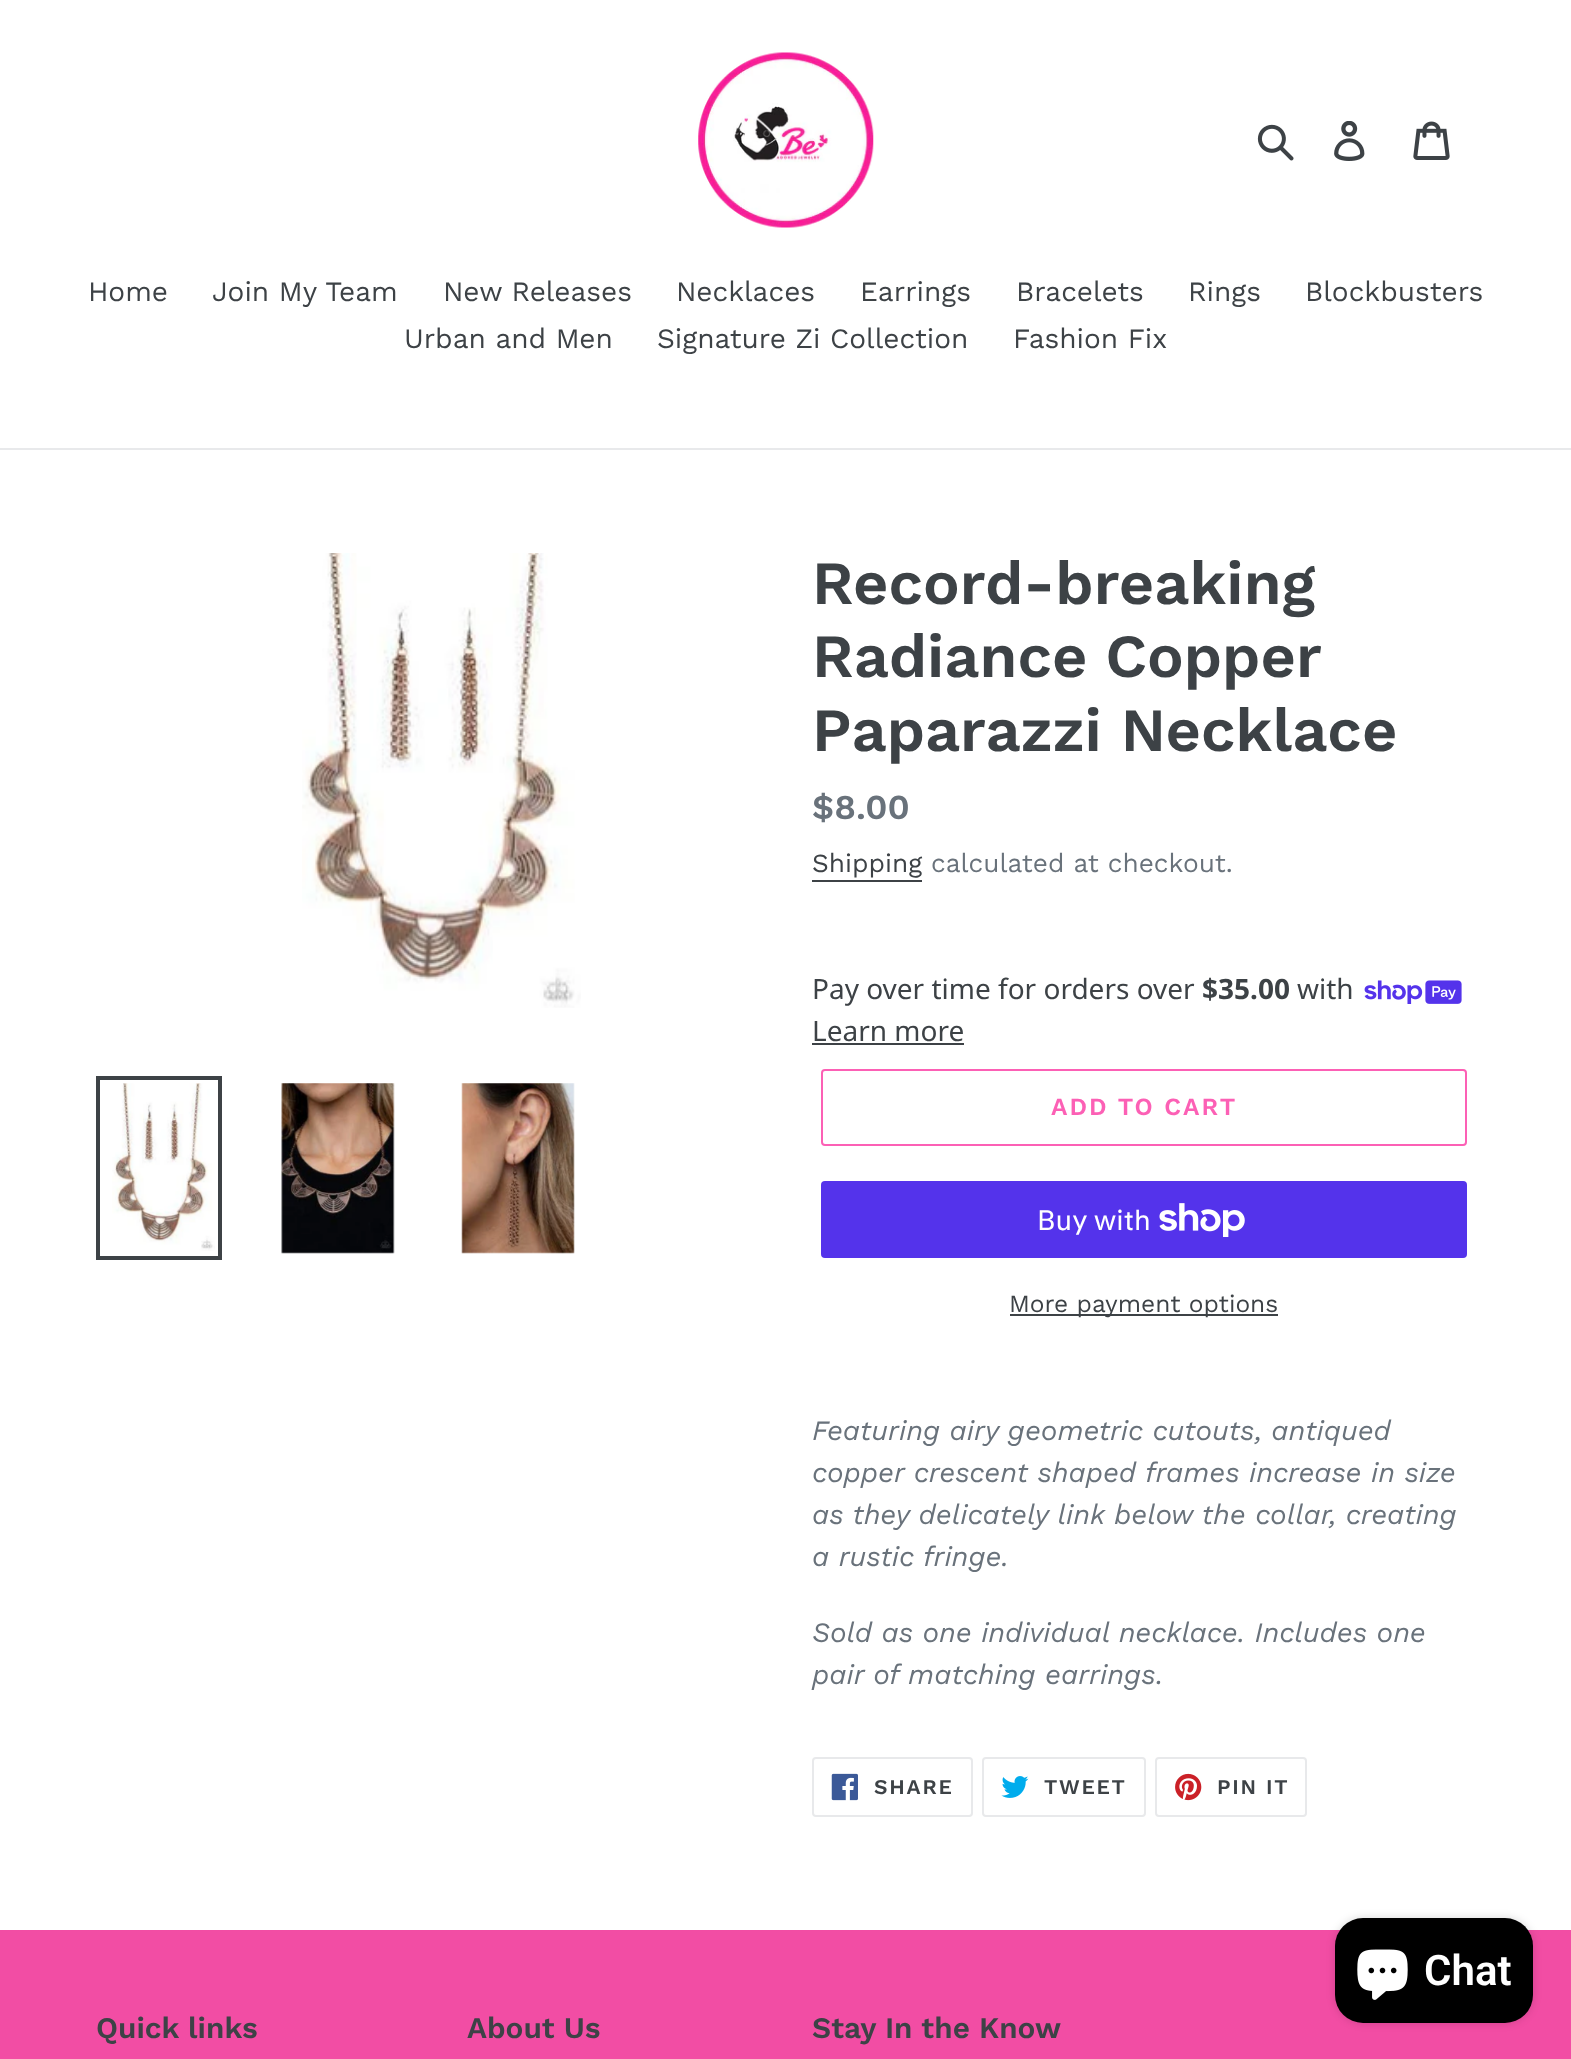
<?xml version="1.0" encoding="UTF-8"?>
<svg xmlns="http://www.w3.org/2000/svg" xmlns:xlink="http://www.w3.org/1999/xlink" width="1571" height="2059">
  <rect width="100%" height="100%" fill="#ffffff" />
  <image x="698" y="52" width="176" height="176" xlink:href="image1.png" />
  <image x="1257" y="124" width="37" height="37" xlink:href="image2.png" />
  <image x="1334" y="121" width="31" height="40" xlink:href="image3.png" />
  <image x="1413" y="121" width="37" height="39" xlink:href="image4.png" />
  <rect y="448" width="1571" height="2" fill="#e8e9eb" />
  <image x="302" y="553" width="279" height="455" xlink:href="image5.png" />
  <rect x="98" y="1078" width="122" height="180" fill="none" stroke="#3d4246" stroke-width="4" />
  <image x="112" y="1083" width="103" height="168" xlink:href="image6.png" />
  <image x="281" y="1083" width="114" height="171" xlink:href="image7.png" />
  <image x="461" y="1083" width="114" height="171" xlink:href="image8.png" />
  <rect x="812" y="880" width="110" height="2" fill="#3d4246" />
  <image x="1364" y="980" width="98" height="24" xlink:href="image9.png" />
  <rect x="812" y="1043" width="152" height="2" fill="#3d4246" />
  <rect x="822" y="1070" width="644" height="75" rx="3" fill="none" stroke="#fc60b5" stroke-width="2" />
  <rect x="821" y="1181" width="646" height="77" rx="4" fill="#5433eb" />
  <image x="1159" y="1203" width="86" height="34" xlink:href="image10.png" />
  <rect x="1010" y="1314" width="268" height="2" fill="#3d4246" />
  <rect x="813" y="1758" width="159" height="58" rx="3" fill="none" stroke="#e8e9eb" stroke-width="2" />
  <image x="831" y="1773" width="27" height="28" xlink:href="image11.png" />
  <rect x="983" y="1758" width="162" height="58" rx="3" fill="none" stroke="#e8e9eb" stroke-width="2" />
  <image x="1001" y="1776" width="28" height="22" xlink:href="image12.png" />
  <rect x="1156" y="1758" width="150" height="58" rx="3" fill="none" stroke="#e8e9eb" stroke-width="2" />
  <image x="1175" y="1773" width="27" height="28" xlink:href="image13.png" />
  <rect y="1930" width="1571" height="129" fill="#f24da4" />
  <rect x="1335" y="1918" width="198" height="105" rx="28" fill="#000000" fill-opacity="0.15" filter="blur(4.5px)" />
  <rect x="1335" y="1918" width="198" height="105" rx="28" fill="#000000" />
  <image x="1357" y="1949" width="51" height="51" xlink:href="image14.png" />
  <text x="88" y="301" style="font-family: Work Sans; font-size: 28px; fill: #3d4246">Home</text>
  <text x="212" y="301" style="font-family: Work Sans; font-size: 28px; fill: #3d4246">Join My Team</text>
  <text x="443" y="301" style="font-family: Work Sans; font-size: 28px; fill: #3d4246">New Releases</text>
  <text x="676" y="301" style="font-family: Work Sans; font-size: 28px; fill: #3d4246">Necklaces</text>
  <text x="860" y="301" style="font-family: Work Sans; font-size: 28px; fill: #3d4246">Earrings</text>
  <text x="1016" y="301" style="font-family: Work Sans; font-size: 28px; fill: #3d4246">Bracelets</text>
  <text x="1188" y="301" style="font-family: Work Sans; font-size: 28px; fill: #3d4246">Rings</text>
  <text x="1305" y="301" style="font-family: Work Sans; font-size: 28px; fill: #3d4246">Blockbusters</text>
  <text x="404" y="348" style="font-family: Work Sans; font-size: 28px; fill: #3d4246">Urban and Men</text>
  <text x="657" y="348" style="font-family: Work Sans; font-size: 28px; fill: #3d4246">Signature Zi Collection</text>
  <text x="1013" y="348" style="font-family: Work Sans; font-size: 28px; fill: #3d4246">Fashion Fix</text>
  <text x="812" y="604" style="font-family: Work Sans; font-size: 61.25px; font-weight: 600; fill: #3d4246">Record-breaking</text>
  <text x="812" y="677" word-spacing="-1" style="font-family: Work Sans; font-size: 61.25px; font-weight: 600; fill: #3d4246">Radiance Copper</text>
  <text x="812" y="751" style="font-family: Work Sans; font-size: 61.25px; font-weight: 600; fill: #3d4246">Paparazzi Necklace</text>
  <text x="812" y="819" style="font-family: Work Sans; font-size: 35px; font-weight: 600; fill: #69727b">$8.00</text>
  <text x="812" y="872" style="font-family: Work Sans; font-size: 26.25px; fill: #3d4246">Shipping</text>
  <text x="931" y="872" style="font-family: Work Sans; font-size: 26.25px; fill: #69727b">calculated at checkout.</text>
  <text x="812" y="999" style="font-family: Noto Sans; font-size: 28px; fill: #3d4246">Pay over time for orders over</text>
  <text x="1202" y="999" style="font-family: Noto Sans; font-size: 28px; font-weight: bold; fill: #3d4246">$35.00</text>
  <text x="1297" y="999" style="font-family: Noto Sans; font-size: 28px; fill: #3d4246">with</text>
  <text x="812" y="1041" style="font-family: Noto Sans; font-size: 28px; fill: #3d4246">Learn more</text>
  <text x="1051" y="1115" style="font-family: Work Sans; font-size: 24.5px; font-weight: 600; letter-spacing: 2px; fill: #fc60b5">ADD TO CART</text>
  <text x="1037" y="1230" style="font-family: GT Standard; font-size: 28px; fill: #ffffff">Buy with</text>
  <text x="1009" y="1312" style="font-family: Work Sans; font-size: 24.5px; fill: #3d4246">More payment options</text>
  <text x="812" y="1440" style="font-family: Work Sans; font-size: 28px; font-style: italic; fill: #69727b">Featuring airy geometric cutouts, antiqued</text>
  <text x="812" y="1482" style="font-family: Work Sans; font-size: 28px; font-style: italic; fill: #69727b">copper crescent shaped frames increase in size</text>
  <text x="812" y="1524" style="font-family: Work Sans; font-size: 28px; font-style: italic; fill: #69727b">as they delicately link below the collar, creating</text>
  <text x="812" y="1566" style="font-family: Work Sans; font-size: 28px; font-style: italic; fill: #69727b">a rustic fringe.</text>
  <text x="812" y="1642" style="font-family: Work Sans; font-size: 28px; font-style: italic; fill: #69727b">Sold as one individual necklace. Includes one</text>
  <text x="812" y="1684" style="font-family: Work Sans; font-size: 28px; font-style: italic; fill: #69727b">pair of matching earrings.</text>
  <text x="874" y="1794" style="font-family: Work Sans; font-size: 21px; font-weight: 600; letter-spacing: 1.75px; fill: #3d4246">SHARE</text>
  <text x="1044" y="1794" style="font-family: Work Sans; font-size: 21px; font-weight: 600; letter-spacing: 1.75px; fill: #3d4246">TWEET</text>
  <text x="1217" y="1794" style="font-family: Work Sans; font-size: 21px; font-weight: 600; letter-spacing: 1.75px; fill: #3d4246">PIN IT</text>
  <text x="96" y="2038" style="font-family: Work Sans; font-size: 29.75px; font-weight: 600; fill: #3d4246">Quick links</text>
  <text x="467" y="2038" style="font-family: Work Sans; font-size: 29.75px; font-weight: 600; fill: #3d4246">About Us</text>
  <text x="812" y="2038" style="font-family: Work Sans; font-size: 29.75px; font-weight: 600; fill: #3d4246">Stay In the Know</text>
  <text x="1424" y="1985" style="font-family: Roboto; font-size: 42px; font-weight: 600; fill: #ffffff">Chat</text>
</svg>
